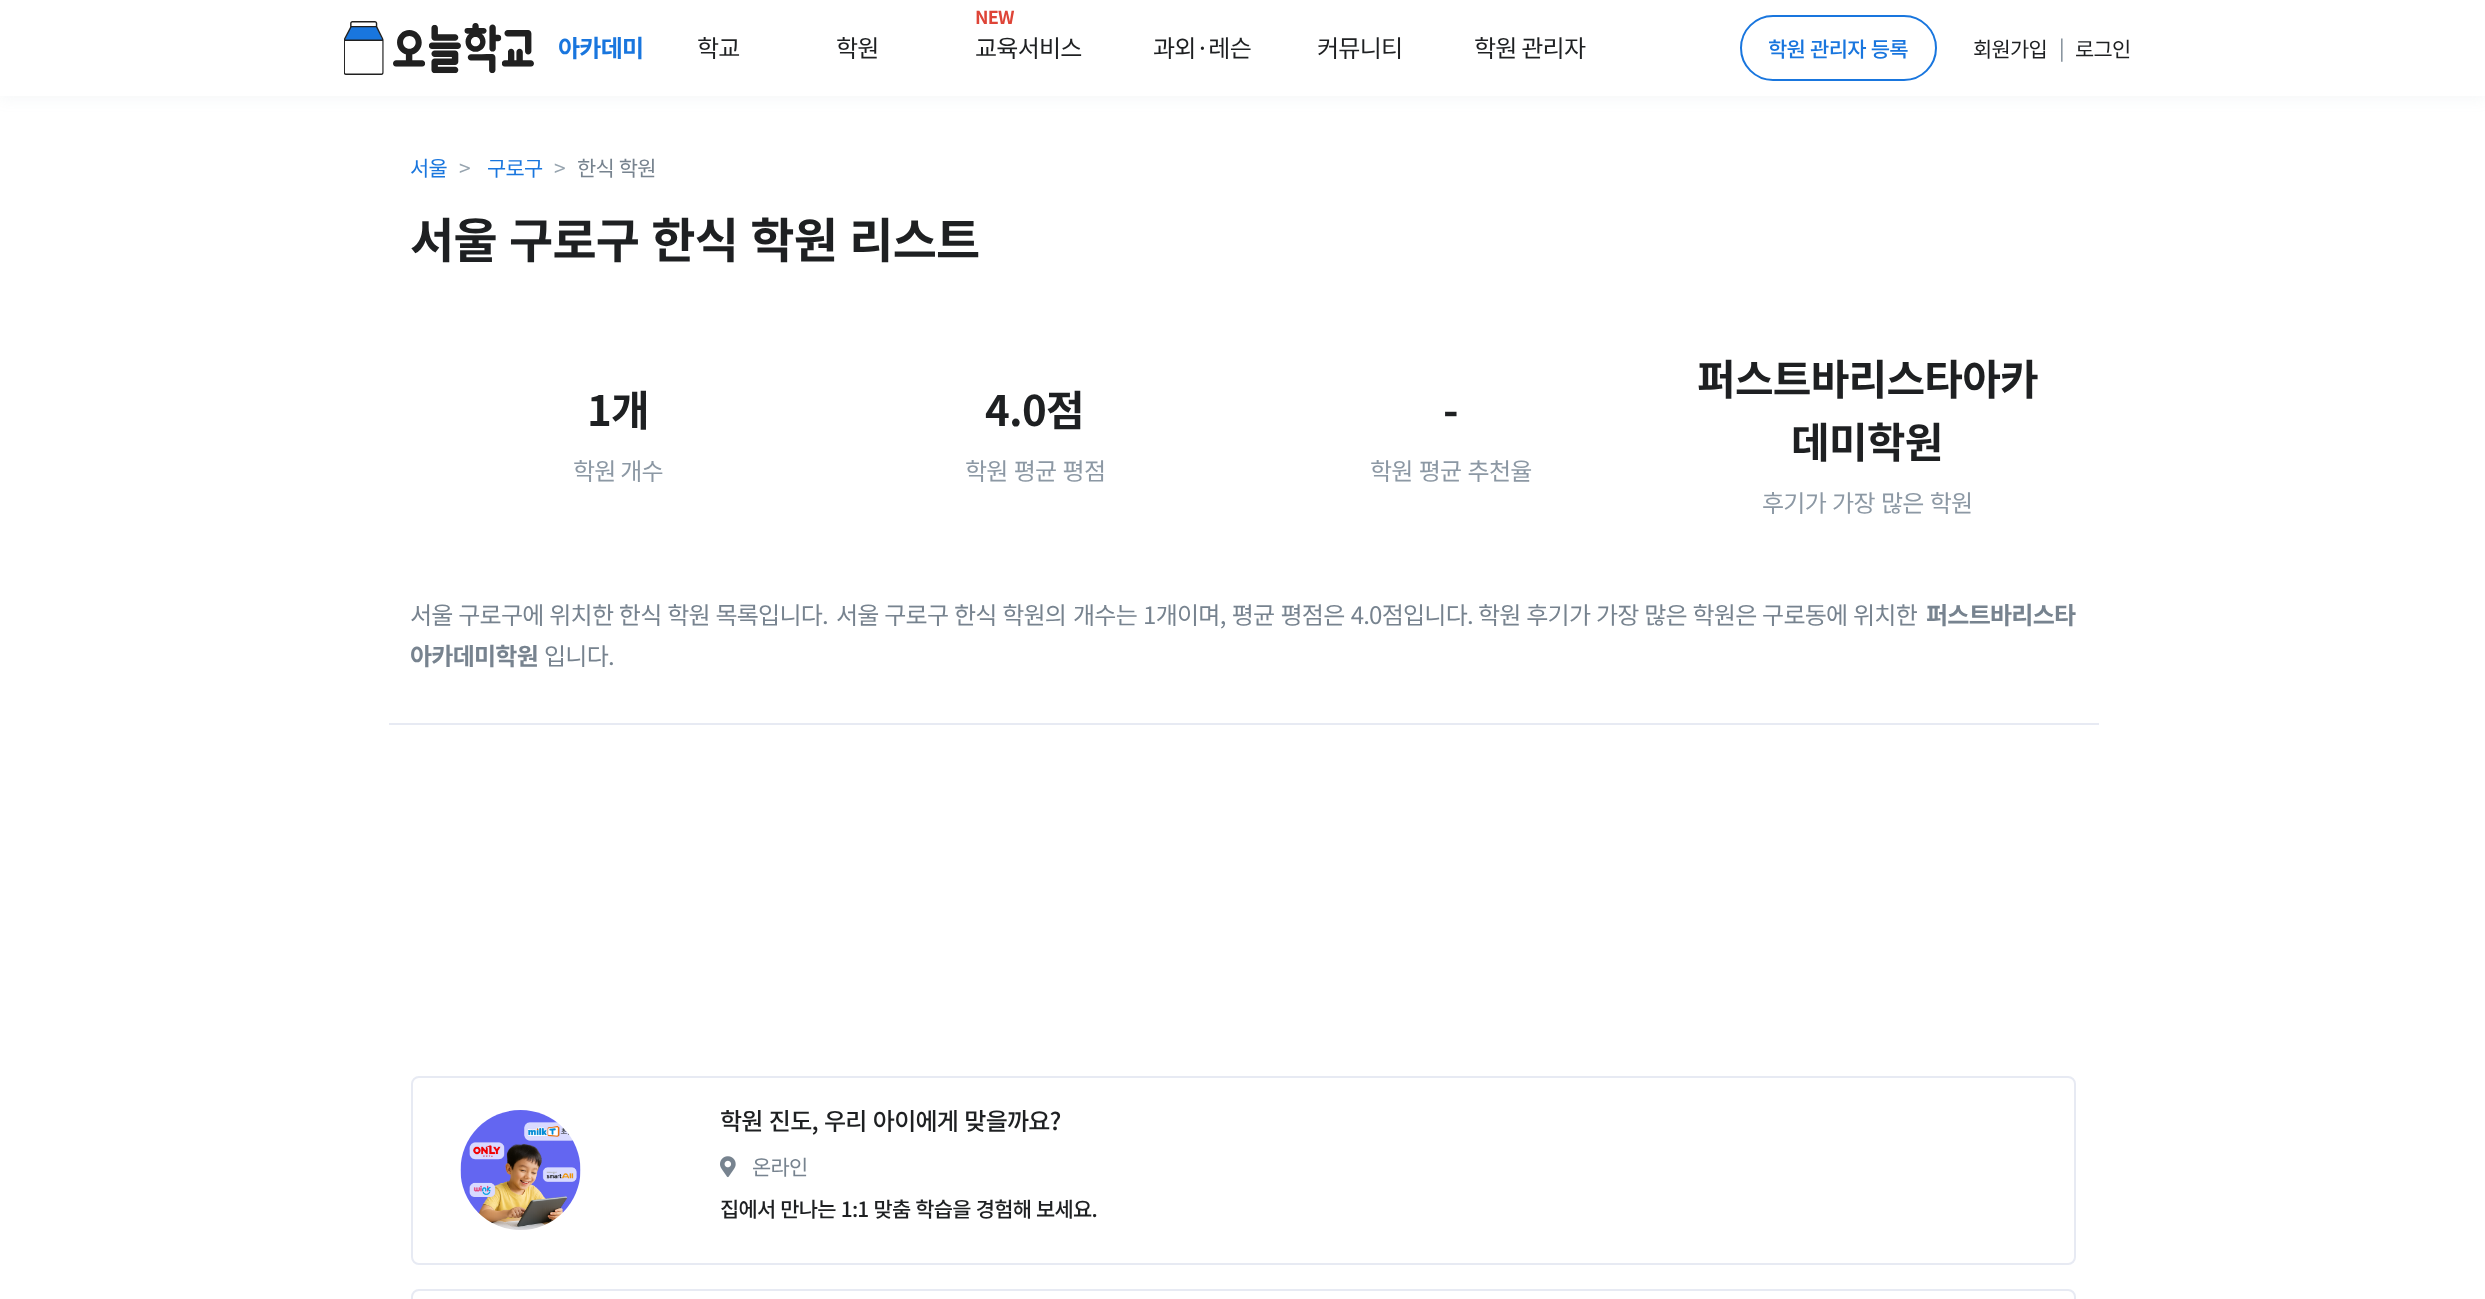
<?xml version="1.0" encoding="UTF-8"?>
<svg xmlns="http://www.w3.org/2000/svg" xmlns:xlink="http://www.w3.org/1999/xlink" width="2485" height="1299">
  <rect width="100%" height="100%" fill="#ffffff" />
  <rect y="2" width="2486" height="96" fill="#97a4af" fill-opacity="0.1" filter="blur(7.5px)" />
  <rect width="2485" height="96" fill="#ffffff" />
  <image x="344" y="21" width="190" height="54" xlink:href="image1.png" />
  <rect x="1741" y="16" width="195" height="64" rx="32" fill="none" stroke="#1976de" stroke-width="2" />
  <rect x="389" y="723" width="1710" height="2" fill="#e7eaf3" />
  <rect x="412" y="1077" width="1663" height="187" rx="7" fill="none" stroke="#e7eaf3" stroke-width="2" />
  <image x="460" y="1110" width="121" height="120" xlink:href="image2.png" />
  <image x="720" y="1156" width="16" height="22" xlink:href="image3.png" />
  <rect x="412" y="1290" width="1663" height="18" rx="7" fill="none" stroke="#e7eaf3" stroke-width="2" />
  <text x="558" y="57" style="font-family: Noto Sans KR; font-size: 24px; font-weight: bold; letter-spacing: -0.75px; fill: #1976de">아카데미</text>
  <text x="697" y="57" style="font-family: Noto Sans KR; font-size: 24px; letter-spacing: -0.75px; fill: #1e2022">학교</text>
  <text x="836" y="57" style="font-family: Noto Sans KR; font-size: 24px; letter-spacing: -0.75px; fill: #1e2022">학원</text>
  <text x="975" y="24" style="font-family: Noto Sans KR; font-size: 18px; font-weight: bold; letter-spacing: -0.75px; fill: #de4437">NEW</text>
  <text x="975" y="57" style="font-family: Noto Sans KR; font-size: 24px; letter-spacing: -0.75px; fill: #1e2022">교육서비스</text>
  <text x="1153" y="57" style="font-family: Noto Sans KR; font-size: 24px; letter-spacing: -0.75px; fill: #1e2022">과외·레슨</text>
  <text x="1317" y="57" style="font-family: Noto Sans KR; font-size: 24px; letter-spacing: -0.75px; fill: #1e2022">커뮤니티</text>
  <text x="1474" y="57" style="font-family: Noto Sans KR; font-size: 24px; letter-spacing: -0.75px; fill: #1e2022">학원 관리자</text>
  <text x="1768" y="57" word-spacing="1" style="font-family: Noto Sans KR; font-size: 21px; font-weight: 500; letter-spacing: -0.75px; fill: #1976de">학원 관리자 등록</text>
  <text x="1973" y="57" style="font-family: Noto Sans KR; font-size: 20.9px; letter-spacing: -0.75px; fill: #1e2022">회원가입</text>
  <text x="2059" y="56" style="font-family: Noto Sans KR; font-size: 20.9px; letter-spacing: -0.75px; fill: #77838f">|</text>
  <text x="2075" y="57" style="font-family: Noto Sans KR; font-size: 20.9px; letter-spacing: -0.75px; fill: #1e2022">로그인</text>
  <text x="410" y="176" style="font-family: Noto Sans KR; font-size: 20.9px; letter-spacing: -0.75px; fill: #1976de">서울</text>
  <text x="459" y="176" style="font-family: Noto Sans KR; font-size: 20.9px; letter-spacing: -0.75px; fill: #97a4af">&gt;</text>
  <text x="487" y="176" style="font-family: Noto Sans KR; font-size: 20.9px; letter-spacing: -0.75px; fill: #1976de">구로구</text>
  <text x="554" y="176" style="font-family: Noto Sans KR; font-size: 20.9px; letter-spacing: -0.75px; fill: #97a4af">&gt;</text>
  <text x="577" y="176" word-spacing="1" style="font-family: Noto Sans KR; font-size: 20.9px; letter-spacing: -0.75px; fill: #77838f">한식 학원</text>
  <text x="410" y="258" word-spacing="2" style="font-family: Noto Sans KR; font-size: 48px; font-weight: bold; letter-spacing: -0.75px; fill: #1e2022">서울 구로구 한식 학원 리스트</text>
  <text x="587" y="426" style="font-family: Noto Sans KR; font-size: 42px; font-weight: bold; letter-spacing: -0.75px; fill: #1e2022">1개</text>
  <text x="573" y="480" style="font-family: Noto Sans KR; font-size: 24px; letter-spacing: -0.75px; fill: #8c98a4">학원 개수</text>
  <text x="985" y="426" style="font-family: Noto Sans KR; font-size: 42px; font-weight: bold; letter-spacing: -0.75px; fill: #1e2022">4.0점</text>
  <text x="965" y="480" word-spacing="1.5" style="font-family: Noto Sans KR; font-size: 24px; letter-spacing: -0.75px; fill: #8c98a4">학원 평균 평점</text>
  <text x="1443" y="426" style="font-family: Noto Sans KR; font-size: 42px; font-weight: bold; letter-spacing: -0.75px; fill: #1e2022">-</text>
  <text x="1370" y="480" word-spacing="1.5" style="font-family: Noto Sans KR; font-size: 24px; letter-spacing: -0.75px; fill: #8c98a4">학원 평균 추천율</text>
  <text x="1697" y="395" style="font-family: Noto Sans KR; font-size: 42px; font-weight: bold; letter-spacing: -0.75px; fill: #1e2022">퍼스트바리스타아카</text>
  <text x="1791" y="458" style="font-family: Noto Sans KR; font-size: 42px; font-weight: bold; letter-spacing: -0.75px; fill: #1e2022">데미학원</text>
  <text x="1762" y="512" word-spacing="1.5" style="font-family: Noto Sans KR; font-size: 24px; letter-spacing: -0.75px; fill: #8c98a4">후기가 가장 많은 학원</text>
  <text x="410" y="624" word-spacing="1" style="font-family: Noto Sans KR; font-size: 24px; letter-spacing: -0.75px; fill: #77838f">서울 구로구에 위치한 한식 학원 목록입니다.</text>
  <text x="836" y="624" word-spacing="1" style="font-family: Noto Sans KR; font-size: 24px; letter-spacing: -0.75px; fill: #77838f">서울 구로구 한식 학원의</text>
  <text x="1073" y="624" word-spacing="1.5" style="font-family: Noto Sans KR; font-size: 24px; letter-spacing: -0.75px; fill: #77838f">개수는 1개이며, 평균 평점은 4.0점입니다.</text>
  <text x="1478" y="624" word-spacing="1" style="font-family: Noto Sans KR; font-size: 24px; letter-spacing: -0.75px; fill: #77838f">학원 후기가 가장 많은 학원은 구로동에 위치한</text>
  <text x="1926" y="624" style="font-family: Noto Sans KR; font-size: 24px; font-weight: bold; letter-spacing: -0.75px; fill: #77838f">퍼스트바리스타</text>
  <text x="410" y="665" style="font-family: Noto Sans KR; font-size: 24px; font-weight: bold; letter-spacing: -0.75px; fill: #77838f">아카데미학원</text>
  <text x="544" y="665" style="font-family: Noto Sans KR; font-size: 24px; letter-spacing: -0.75px; fill: #77838f">입니다.</text>
  <text x="720" y="1130" word-spacing="1.5" style="font-family: Noto Sans KR; font-size: 24px; font-weight: 500; letter-spacing: -0.75px; fill: #1e2022">학원 진도, 우리 아이에게 맞을까요?</text>
  <text x="752" y="1175" style="font-family: Noto Sans KR; font-size: 20.9px; letter-spacing: -0.75px; fill: #77838f">온라인</text>
  <text x="720" y="1217" word-spacing="1" style="font-family: Noto Sans KR; font-size: 20.9px; font-weight: 500; letter-spacing: -0.75px; fill: #1e2022">집에서 만나는 1:1 맞춤 학습을 경험해 보세요.</text>
</svg>
